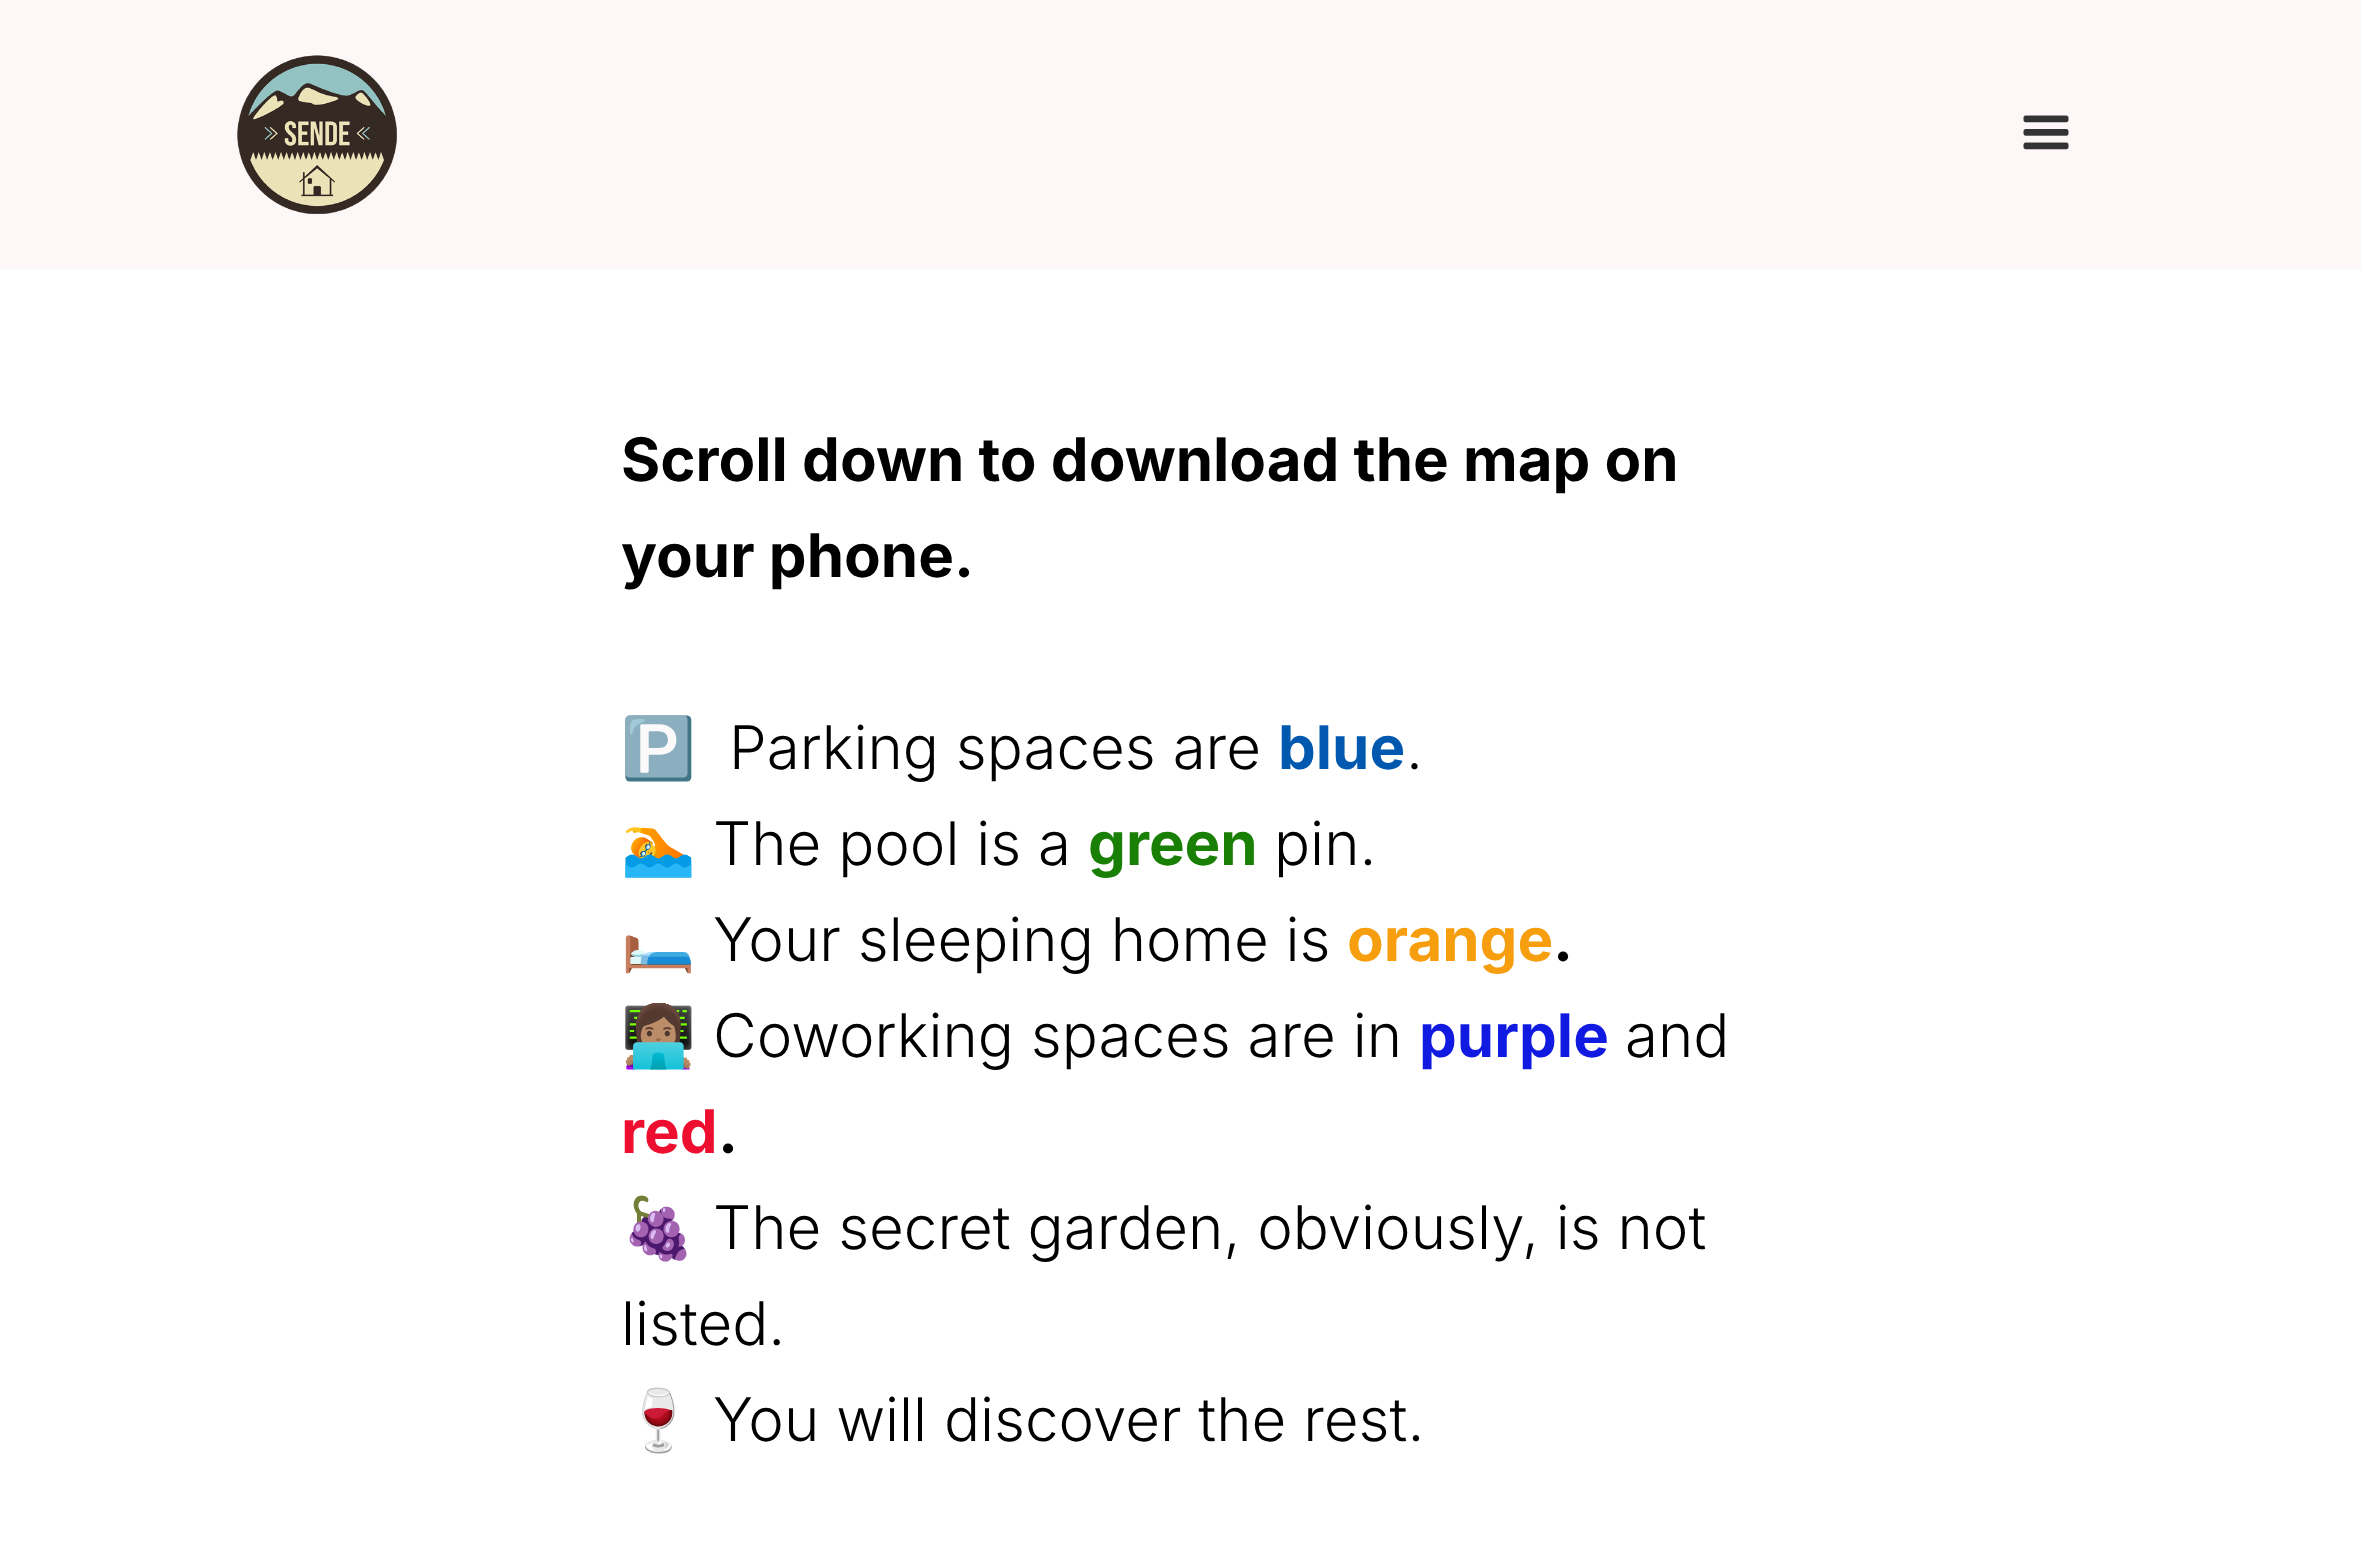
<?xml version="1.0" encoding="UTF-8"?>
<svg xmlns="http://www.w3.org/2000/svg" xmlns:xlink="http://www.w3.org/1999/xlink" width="2364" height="1546">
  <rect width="100%" height="100%" fill="#ffffff" />
  <rect width="2361" height="270" fill="#fdf7f7" />
  <image x="237" y="55" width="160" height="159" xlink:href="image1.png" />
  <image x="2023" y="115" width="46" height="35" xlink:href="image2.png" />
  <text x="621" y="481" style="font-family: Inter; font-size: 60px; font-weight: bold; fill: #000000">Scroll down to download the map on</text>
  <text x="621" y="577" style="font-family: Inter; font-size: 60px; font-weight: bold; fill: #000000">your phone.</text>
  <text x="621" y="769" style="font-family: Noto Color Emoji; font-size: 60px; fill: #000000">🅿️</text>
  <text x="729" y="769" style="font-family: Inter; font-size: 60px; font-weight: 300; fill: #000000">Parking spaces are</text>
  <text x="1278" y="769" style="font-family: Inter; font-size: 60px; font-weight: bold; fill: #0058af">blue</text>
  <text x="1406" y="769" style="font-family: Inter; font-size: 60px; font-weight: 300; fill: #000000">.</text>
  <text x="621" y="865" style="font-family: Noto Color Emoji; font-size: 60px; fill: #000000">🏊</text>
  <text x="713" y="865" style="font-family: Inter; font-size: 60px; font-weight: 300; fill: #000000">The pool is a</text>
  <text x="1088" y="865" style="font-family: Inter; font-size: 60px; font-weight: bold; fill: #197f05">green</text>
  <text x="1274" y="865" style="font-family: Inter; font-size: 60px; font-weight: 300; fill: #000000">pin.</text>
  <text x="621" y="961" style="font-family: Noto Color Emoji; font-size: 60px; fill: #000000">🛏️</text>
  <text x="713" y="961" style="font-family: Inter; font-size: 60px; font-weight: 300; fill: #000000">Your sleeping home is</text>
  <text x="1347" y="961" style="font-family: Inter; font-size: 60px; font-weight: bold; fill: #f79e0f">orange</text>
  <text x="1553" y="961" style="font-family: Inter; font-size: 60px; font-weight: bold; fill: #000000">.</text>
  <text x="621" y="1057" style="font-family: Noto Color Emoji; font-size: 60px; fill: #000000">👩🏽‍💻</text>
  <text x="713" y="1057" style="font-family: Inter; font-size: 60px; font-weight: 300; fill: #000000">Coworking spaces are in</text>
  <text x="1419" y="1057" style="font-family: Inter; font-size: 60px; font-weight: bold; fill: #101ae0">purple</text>
  <text x="1625" y="1057" style="font-family: Inter; font-size: 60px; font-weight: 300; fill: #000000">and</text>
  <text x="621" y="1153" style="font-family: Inter; font-size: 60px; font-weight: bold; fill: #ee0f30">red</text>
  <text x="718" y="1153" style="font-family: Inter; font-size: 60px; font-weight: bold; fill: #000000">.</text>
  <text x="621" y="1249" style="font-family: Noto Color Emoji; font-size: 60px; fill: #000000">🍇</text>
  <text x="713" y="1249" style="font-family: Inter; font-size: 60px; font-weight: 300; fill: #000000">The secret garden, obviously, is not</text>
  <text x="621" y="1345" style="font-family: Inter; font-size: 60px; font-weight: 300; fill: #000000">listed.</text>
  <text x="621" y="1441" style="font-family: Noto Color Emoji; font-size: 60px; fill: #000000">🍷</text>
  <text x="713" y="1441" style="font-family: Inter; font-size: 60px; font-weight: 300; fill: #000000">You will discover the rest.</text>
</svg>
